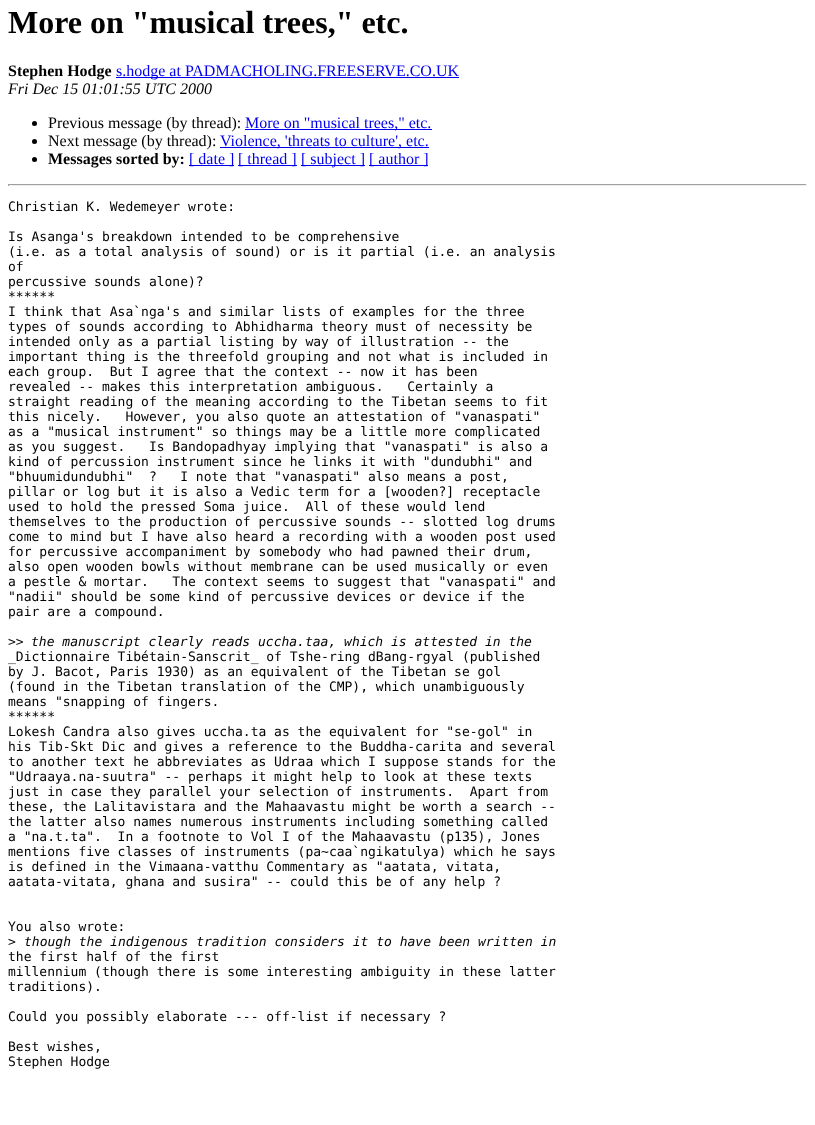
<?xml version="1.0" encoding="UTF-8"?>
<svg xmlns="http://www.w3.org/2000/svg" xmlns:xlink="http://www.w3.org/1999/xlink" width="815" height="1125">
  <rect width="100%" height="100%" fill="#ffffff" />
  <rect x="116" y="77" width="343" height="1" fill="#0000ee" />
  <circle cx="34.5" cy="123.5" r="2.5" fill="#000000" />
  <rect x="245" y="129" width="187" height="1" fill="#0000ee" />
  <circle cx="34.5" cy="141.5" r="2.5" fill="#000000" />
  <rect x="220" y="147" width="209" height="1" fill="#0000ee" />
  <circle cx="34.5" cy="159.5" r="2.5" fill="#000000" />
  <rect x="189" y="165" width="45" height="1" fill="#0000ee" />
  <rect x="238" y="165" width="59" height="1" fill="#0000ee" />
  <rect x="301" y="165" width="64" height="1" fill="#0000ee" />
  <rect x="369" y="165" width="59" height="1" fill="#0000ee" />
  <rect x="8" y="184" width="799" height="1" fill="#9f9f9f" />
  <rect x="806" y="184" width="1" height="2" fill="#eeeeee" />
  <rect x="8" y="185" width="799" height="1" fill="#eeeeee" />
  <rect x="8" y="184" width="1" height="2" fill="#9f9f9f" />
  <text x="8" y="33" style="font-family: Liberation Serif; font-size: 32px; font-weight: bold; fill: #000000">More on "musical trees," etc.</text>
  <text x="8" y="76" style="font-family: Liberation Serif; font-size: 16px; font-weight: bold; fill: #000000">Stephen Hodge</text>
  <text x="116" y="76" style="font-family: Liberation Serif; font-size: 16px; fill: #0000ee">s.hodge at PADMACHOLING.FREESERVE.CO.UK</text>
  <text x="8" y="94" style="font-family: Liberation Serif; font-size: 16px; font-style: italic; fill: #000000">Fri Dec 15 01:01:55 UTC 2000</text>
  <text x="48" y="128" style="font-family: Liberation Serif; font-size: 16px; fill: #000000">Previous message (by thread):</text>
  <text x="245" y="128" style="font-family: Liberation Serif; font-size: 16px; fill: #0000ee">More on "musical trees," etc.</text>
  <text x="48" y="146" style="font-family: Liberation Serif; font-size: 16px; fill: #000000">Next message (by thread):</text>
  <text x="220" y="146" style="font-family: Liberation Serif; font-size: 16px; fill: #0000ee">Violence, 'threats to culture', etc.</text>
  <text x="48" y="164" style="font-family: Liberation Serif; font-size: 16px; font-weight: bold; fill: #000000">Messages sorted by:</text>
  <text x="189" y="164" style="font-family: Liberation Serif; font-size: 16px; fill: #0000ee">[ date ]</text>
  <text x="238" y="164" style="font-family: Liberation Serif; font-size: 16px; fill: #0000ee">[ thread ]</text>
  <text x="301" y="164" style="font-family: Liberation Serif; font-size: 16px; fill: #0000ee">[ subject ]</text>
  <text x="369" y="164" style="font-family: Liberation Serif; font-size: 16px; fill: #0000ee">[ author ]</text>
  <text x="8" y="211" style="font-family: DejaVu Sans Mono; font-size: 13px; fill: #000000">Christian K. Wedemeyer wrote:</text>
  <text x="8" y="241" style="font-family: DejaVu Sans Mono; font-size: 13px; fill: #000000">Is Asanga's breakdown intended to be comprehensive</text>
  <text x="8" y="256" style="font-family: DejaVu Sans Mono; font-size: 13px; fill: #000000">(i.e. as a total analysis of sound) or is it partial (i.e. an analysis</text>
  <text x="8" y="271" style="font-family: DejaVu Sans Mono; font-size: 13px; fill: #000000">of</text>
  <text x="8" y="286" style="font-family: DejaVu Sans Mono; font-size: 13px; fill: #000000">percussive sounds alone)?</text>
  <text x="8" y="301" style="font-family: DejaVu Sans Mono; font-size: 13px; fill: #000000">******</text>
  <text x="8" y="316" style="font-family: DejaVu Sans Mono; font-size: 13px; fill: #000000">I think that Asa`nga's and similar lists of examples for the three</text>
  <text x="8" y="331" style="font-family: DejaVu Sans Mono; font-size: 13px; fill: #000000">types of sounds according to Abhidharma theory must of necessity be</text>
  <text x="8" y="346" style="font-family: DejaVu Sans Mono; font-size: 13px; fill: #000000">intended only as a partial listing by way of illustration -- the</text>
  <text x="8" y="361" style="font-family: DejaVu Sans Mono; font-size: 13px; fill: #000000">important thing is the threefold grouping and not what is included in</text>
  <text x="8" y="376" style="font-family: DejaVu Sans Mono; font-size: 13px; fill: #000000" xml:space="preserve">each group.  But I agree that the context -- now it has been</text>
  <text x="8" y="391" style="font-family: DejaVu Sans Mono; font-size: 13px; fill: #000000" xml:space="preserve">revealed -- makes this interpretation ambiguous.   Certainly a</text>
  <text x="8" y="406" style="font-family: DejaVu Sans Mono; font-size: 13px; fill: #000000">straight reading of the meaning according to the Tibetan seems to fit</text>
  <text x="8" y="421" style="font-family: DejaVu Sans Mono; font-size: 13px; fill: #000000" xml:space="preserve">this nicely.   However, you also quote an attestation of "vanaspati"</text>
  <text x="8" y="436" style="font-family: DejaVu Sans Mono; font-size: 13px; fill: #000000">as a "musical instrument" so things may be a little more complicated</text>
  <text x="8" y="451" style="font-family: DejaVu Sans Mono; font-size: 13px; fill: #000000" xml:space="preserve">as you suggest.   Is Bandopadhyay implying that "vanaspati" is also a</text>
  <text x="8" y="466" style="font-family: DejaVu Sans Mono; font-size: 13px; fill: #000000">kind of percussion instrument since he links it with "dundubhi" and</text>
  <text x="8" y="481" style="font-family: DejaVu Sans Mono; font-size: 13px; fill: #000000" xml:space="preserve">"bhuumidundubhi"  ?   I note that "vanaspati" also means a post,</text>
  <text x="8" y="496" style="font-family: DejaVu Sans Mono; font-size: 13px; fill: #000000">pillar or log but it is also a Vedic term for a [wooden?] receptacle</text>
  <text x="8" y="511" style="font-family: DejaVu Sans Mono; font-size: 13px; fill: #000000" xml:space="preserve">used to hold the pressed Soma juice.  All of these would lend</text>
  <text x="8" y="526" style="font-family: DejaVu Sans Mono; font-size: 13px; fill: #000000">themselves to the production of percussive sounds -- slotted log drums</text>
  <text x="8" y="541" style="font-family: DejaVu Sans Mono; font-size: 13px; fill: #000000">come to mind but I have also heard a recording with a wooden post used</text>
  <text x="8" y="556" style="font-family: DejaVu Sans Mono; font-size: 13px; fill: #000000">for percussive accompaniment by somebody who had pawned their drum,</text>
  <text x="8" y="571" style="font-family: DejaVu Sans Mono; font-size: 13px; fill: #000000">also open wooden bowls without membrane can be used musically or even</text>
  <text x="8" y="586" style="font-family: DejaVu Sans Mono; font-size: 13px; fill: #000000" xml:space="preserve">a pestle &amp; mortar.   The context seems to suggest that "vanaspati" and</text>
  <text x="8" y="601" style="font-family: DejaVu Sans Mono; font-size: 13px; fill: #000000">"nadii" should be some kind of percussive devices or device if the</text>
  <text x="8" y="616" style="font-family: DejaVu Sans Mono; font-size: 13px; fill: #000000">pair are a compound.</text>
  <text x="8" y="646" style="font-family: DejaVu Sans Mono; font-size: 13px; fill: #000000">&gt;&gt;</text>
  <text x="31" y="646" style="font-family: DejaVu Sans Mono; font-size: 13px; font-style: italic; fill: #000000">the manuscript clearly reads uccha.taa, which is attested in the</text>
  <text x="8" y="661" style="font-family: DejaVu Sans Mono; font-size: 13px; fill: #000000">_Dictionnaire Tibétain-Sanscrit_ of Tshe-ring dBang-rgyal (published</text>
  <text x="8" y="676" style="font-family: DejaVu Sans Mono; font-size: 13px; fill: #000000">by J. Bacot, Paris 1930) as an equivalent of the Tibetan se gol</text>
  <text x="8" y="691" style="font-family: DejaVu Sans Mono; font-size: 13px; fill: #000000">(found in the Tibetan translation of the CMP), which unambiguously</text>
  <text x="8" y="706" style="font-family: DejaVu Sans Mono; font-size: 13px; fill: #000000">means "snapping of fingers.</text>
  <text x="8" y="721" style="font-family: DejaVu Sans Mono; font-size: 13px; fill: #000000">******</text>
  <text x="8" y="736" style="font-family: DejaVu Sans Mono; font-size: 13px; fill: #000000">Lokesh Candra also gives uccha.ta as the equivalent for "se-gol" in</text>
  <text x="8" y="751" style="font-family: DejaVu Sans Mono; font-size: 13px; fill: #000000">his Tib-Skt Dic and gives a reference to the Buddha-carita and several</text>
  <text x="8" y="766" style="font-family: DejaVu Sans Mono; font-size: 13px; fill: #000000">to another text he abbreviates as Udraa which I suppose stands for the</text>
  <text x="8" y="781" style="font-family: DejaVu Sans Mono; font-size: 13px; fill: #000000">"Udraaya.na-suutra" -- perhaps it might help to look at these texts</text>
  <text x="8" y="796" style="font-family: DejaVu Sans Mono; font-size: 13px; fill: #000000" xml:space="preserve">just in case they parallel your selection of instruments.  Apart from</text>
  <text x="8" y="811" style="font-family: DejaVu Sans Mono; font-size: 13px; fill: #000000">these, the Lalitavistara and the Mahaavastu might be worth a search --</text>
  <text x="8" y="826" style="font-family: DejaVu Sans Mono; font-size: 13px; fill: #000000">the latter also names numerous instruments including something called</text>
  <text x="8" y="841" style="font-family: DejaVu Sans Mono; font-size: 13px; fill: #000000" xml:space="preserve">a "na.t.ta".  In a footnote to Vol I of the Mahaavastu (p135), Jones</text>
  <text x="8" y="856" style="font-family: DejaVu Sans Mono; font-size: 13px; fill: #000000">mentions five classes of instruments (pa~caa`ngikatulya) which he says</text>
  <text x="8" y="871" style="font-family: DejaVu Sans Mono; font-size: 13px; fill: #000000">is defined in the Vimaana-vatthu Commentary as "aatata, vitata,</text>
  <text x="8" y="886" style="font-family: DejaVu Sans Mono; font-size: 13px; fill: #000000">aatata-vitata, ghana and susira" -- could this be of any help ?</text>
  <text x="8" y="931" style="font-family: DejaVu Sans Mono; font-size: 13px; fill: #000000">You also wrote:</text>
  <text x="8" y="946" style="font-family: DejaVu Sans Mono; font-size: 13px; fill: #000000">&gt;</text>
  <text x="24" y="946" style="font-family: DejaVu Sans Mono; font-size: 13px; font-style: italic; fill: #000000">though the indigenous tradition considers it to have been written in</text>
  <text x="8" y="961" style="font-family: DejaVu Sans Mono; font-size: 13px; fill: #000000">the first half of the first</text>
  <text x="8" y="976" style="font-family: DejaVu Sans Mono; font-size: 13px; fill: #000000">millennium (though there is some interesting ambiguity in these latter</text>
  <text x="8" y="991" style="font-family: DejaVu Sans Mono; font-size: 13px; fill: #000000">traditions).</text>
  <text x="8" y="1021" style="font-family: DejaVu Sans Mono; font-size: 13px; fill: #000000">Could you possibly elaborate --- off-list if necessary ?</text>
  <text x="8" y="1051" style="font-family: DejaVu Sans Mono; font-size: 13px; fill: #000000">Best wishes,</text>
  <text x="8" y="1066" style="font-family: DejaVu Sans Mono; font-size: 13px; fill: #000000">Stephen Hodge</text>
</svg>
